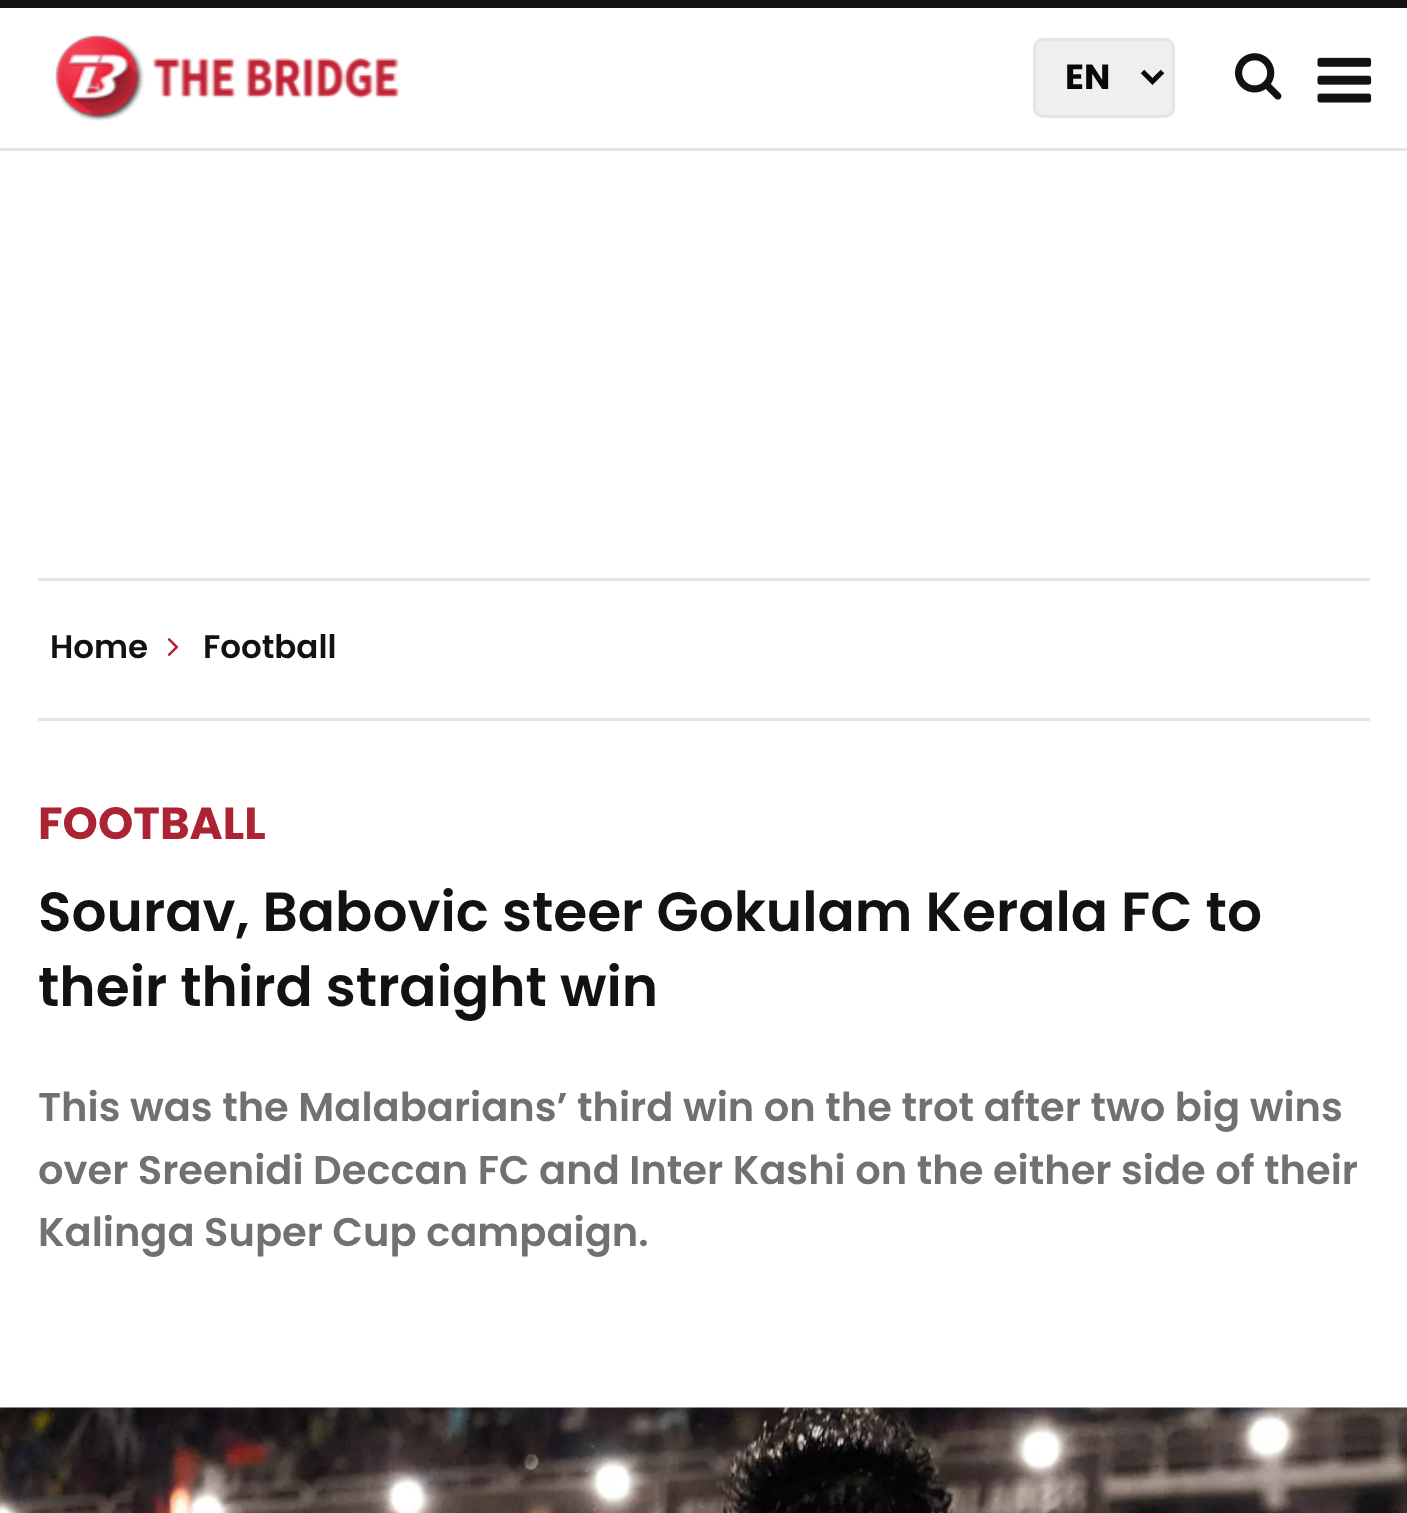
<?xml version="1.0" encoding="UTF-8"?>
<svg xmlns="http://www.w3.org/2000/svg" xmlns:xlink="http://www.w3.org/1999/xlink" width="1407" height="1513">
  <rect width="100%" height="100%" fill="#ffffff" />
  <rect width="1407" height="8" fill="#121212" />
  <rect y="148" width="1407" height="3" fill="#e5e5e5" />
  <image x="55" y="34" width="344" height="87" xlink:href="image1.png" />
  <rect x="1034.5" y="39.5" width="139" height="77" rx="8.5" fill="#efefef" stroke="#e5e5e5" stroke-width="3" />
  <path d="M 1142.5 71.5 l 10 10 l 10 -10" fill="none" stroke="#0a0909" stroke-width="5" />
  <image x="1235" y="53" width="47" height="47" xlink:href="image2.png" />
  <image x="1317" y="57" width="55" height="46" xlink:href="image3.png" />
  <rect x="38" y="578" width="1332" height="3" fill="#e5e5e5" />
  <rect x="38" y="718" width="1332" height="3" fill="#e5e5e5" />
  <image x="167" y="638" width="12" height="19" xlink:href="image4.png" />
  <image x="0" y="1407" width="1407" height="106" xlink:href="image5.png" />
  <text x="1065" y="89" style="font-family: Poppins; font-size: 35px; font-weight: bold; fill: #0a0909">EN</text>
  <text x="50" y="658" style="font-family: Poppins; font-size: 32.5px; font-weight: 600; fill: #121212">Home</text>
  <text x="203" y="658" style="font-family: Poppins; font-size: 32.5px; font-weight: 600; fill: #121212">Football</text>
  <text x="38" y="839" style="font-family: Poppins; font-size: 45px; font-weight: bold; fill: #ac2333">FOOTBALL</text>
  <text x="38" y="931" style="font-family: Poppins; font-size: 55px; font-weight: 600; fill: #121212">Sourav, Babovic steer Gokulam Kerala FC to</text>
  <text x="38" y="1006" style="font-family: Poppins; font-size: 55px; font-weight: 600; fill: #121212">their third straight win</text>
  <text x="38" y="1121" style="font-family: Poppins; font-size: 40px; font-weight: 600; fill: #717171">This was the Malabarians’ third win on the trot after two big wins</text>
  <text x="38" y="1184" style="font-family: Poppins; font-size: 40px; font-weight: 600; fill: #717171">over Sreenidi Deccan FC and Inter Kashi on the either side of their</text>
  <text x="38" y="1246" style="font-family: Poppins; font-size: 40px; font-weight: 600; fill: #717171">Kalinga Super Cup campaign.</text>
</svg>
